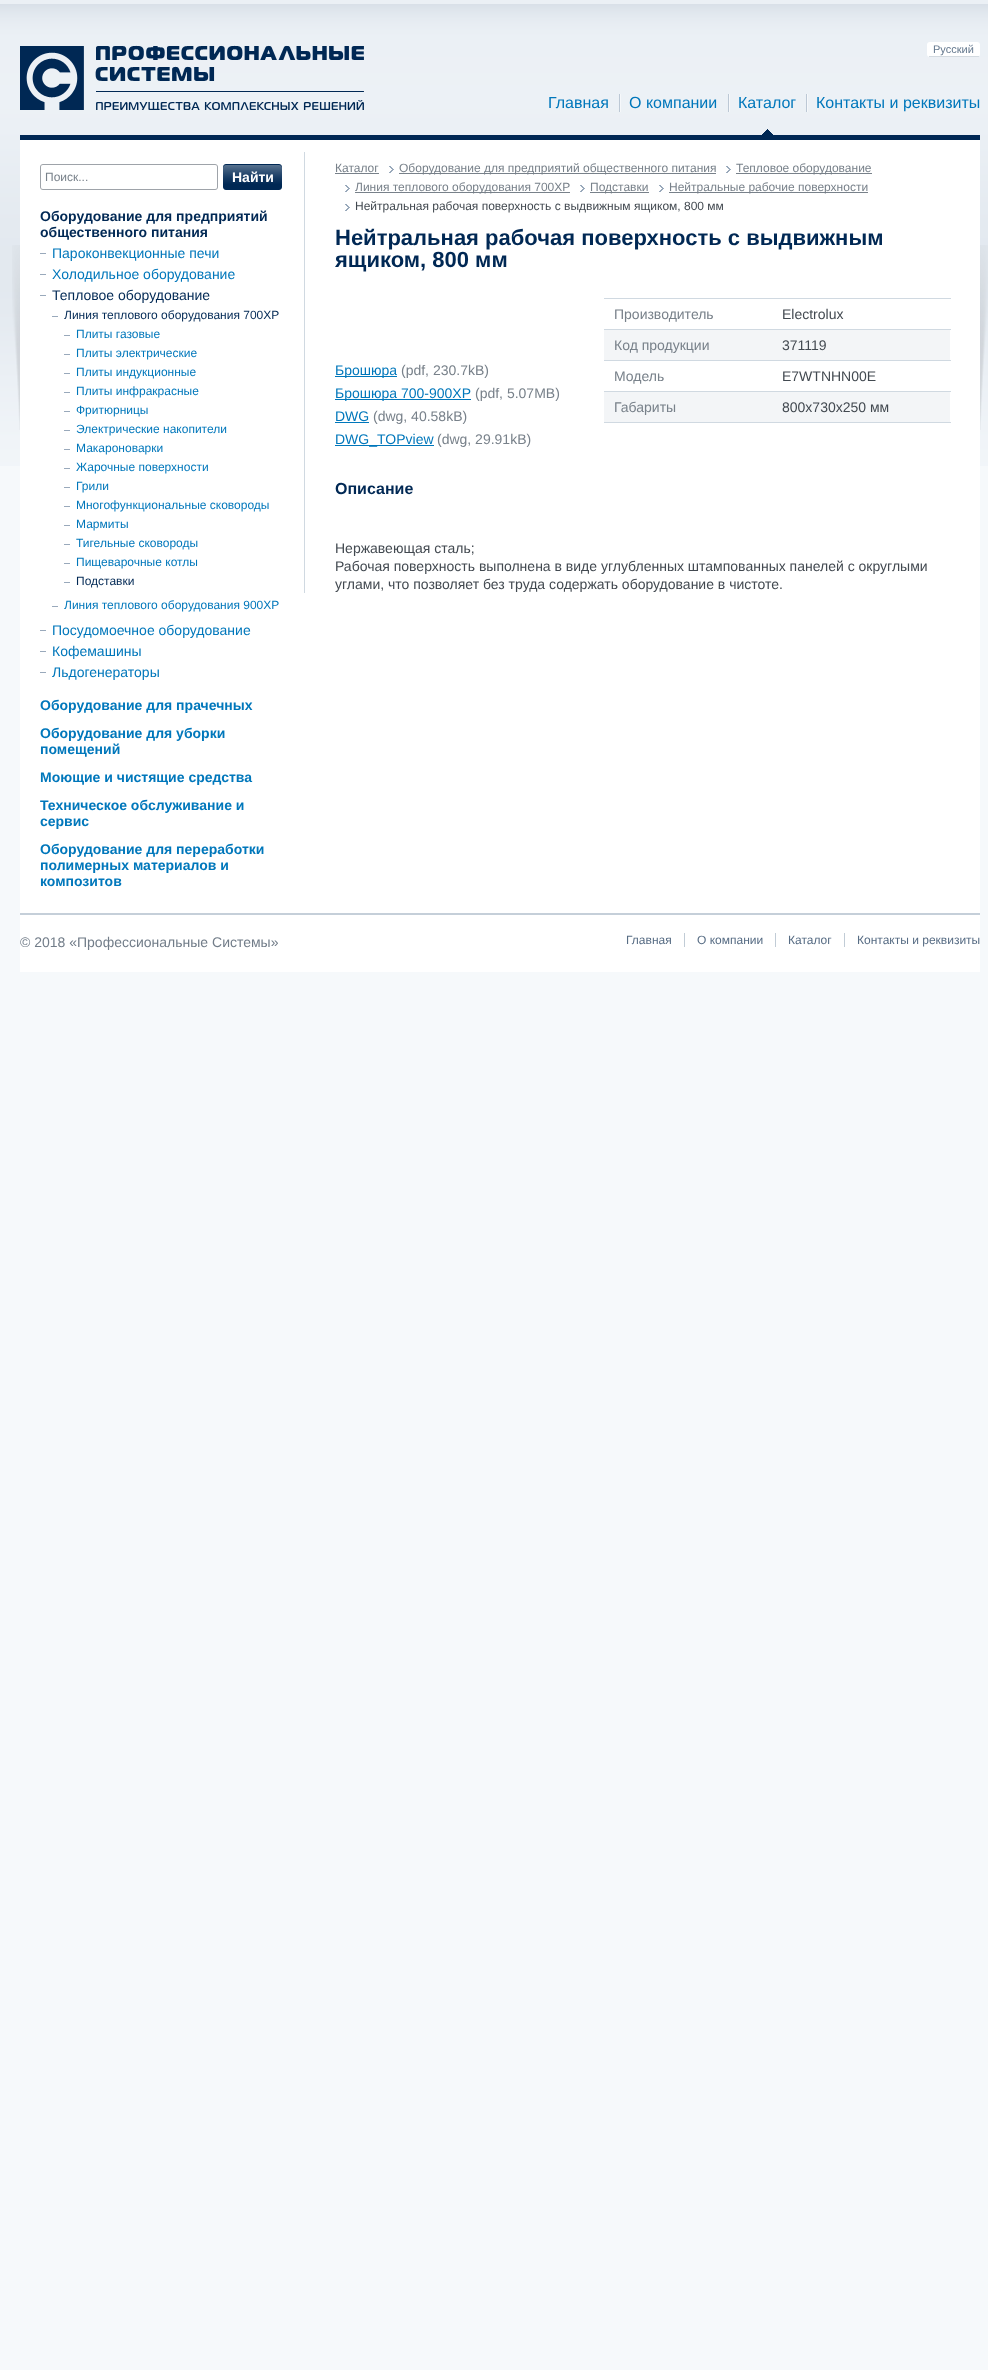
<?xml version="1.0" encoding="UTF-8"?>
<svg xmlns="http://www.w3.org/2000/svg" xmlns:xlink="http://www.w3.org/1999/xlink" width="988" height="2370">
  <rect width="100%" height="100%" fill="#f6f9fb" />
  <image x="0" y="0" width="988" height="466" xlink:href="image1.png" />
  <image x="12" y="245" width="976" height="185" xlink:href="image2.png" />
  <rect x="20" y="135" width="960" height="5" fill="#002854" />
  <image x="20" y="45" width="344" height="65" xlink:href="image3.png" />
  <rect x="927" y="42" width="53" height="15" rx="3" fill="#ffffff" />
  <rect x="929" y="56" width="50" height="1" fill="#d3dae0" />
  <image x="619" y="94" width="2" height="18" xlink:href="image4.png" />
  <image x="728" y="94" width="2" height="18" xlink:href="image4.png" />
  <image x="762" y="129" width="11" height="6" xlink:href="image5.png" />
  <image x="806" y="94" width="2" height="18" xlink:href="image4.png" />
  <rect x="20" y="140" width="960" height="832" fill="#ffffff" />
  <image x="40" y="164" width="178" height="26" xlink:href="image6.png" />
  <image x="223" y="164" width="59" height="26" xlink:href="image7.png" />
  <rect x="40" y="253" width="6" height="1" fill="#99a9bb" />
  <rect x="40" y="274" width="6" height="1" fill="#99a9bb" />
  <rect x="40" y="295" width="6" height="1" fill="#99a9bb" />
  <rect x="52" y="316" width="6" height="1" fill="#99a9bb" />
  <rect x="64" y="335" width="6" height="1" fill="#99a9bb" />
  <rect x="64" y="354" width="6" height="1" fill="#99a9bb" />
  <rect x="64" y="373" width="6" height="1" fill="#99a9bb" />
  <rect x="64" y="392" width="6" height="1" fill="#99a9bb" />
  <rect x="64" y="411" width="6" height="1" fill="#99a9bb" />
  <rect x="64" y="430" width="6" height="1" fill="#99a9bb" />
  <rect x="64" y="449" width="6" height="1" fill="#99a9bb" />
  <rect x="64" y="468" width="6" height="1" fill="#99a9bb" />
  <rect x="64" y="487" width="6" height="1" fill="#99a9bb" />
  <rect x="64" y="506" width="6" height="1" fill="#99a9bb" />
  <rect x="64" y="525" width="6" height="1" fill="#99a9bb" />
  <rect x="64" y="544" width="6" height="1" fill="#99a9bb" />
  <rect x="64" y="563" width="6" height="1" fill="#99a9bb" />
  <rect x="64" y="582" width="6" height="1" fill="#99a9bb" />
  <rect x="52" y="606" width="6" height="1" fill="#99a9bb" />
  <rect x="40" y="630" width="6" height="1" fill="#99a9bb" />
  <rect x="40" y="651" width="6" height="1" fill="#99a9bb" />
  <rect x="40" y="672" width="6" height="1" fill="#99a9bb" />
  <rect x="304" y="152" width="1" height="441" fill="#d0d9e1" />
  <rect x="335" y="173" width="44" height="1" fill="#78818a" />
  <image x="389" y="166" width="5" height="7" xlink:href="image8.png" />
  <rect x="399" y="173" width="317" height="1" fill="#78818a" />
  <image x="726" y="166" width="5" height="7" xlink:href="image8.png" />
  <rect x="736" y="173" width="136" height="1" fill="#78818a" />
  <image x="345" y="185" width="5" height="7" xlink:href="image8.png" />
  <rect x="355" y="192" width="215" height="1" fill="#78818a" />
  <image x="580" y="185" width="5" height="7" xlink:href="image8.png" />
  <rect x="590" y="192" width="59" height="1" fill="#78818a" />
  <image x="659" y="185" width="5" height="7" xlink:href="image8.png" />
  <rect x="669" y="192" width="199" height="1" fill="#78818a" />
  <image x="345" y="204" width="5" height="7" xlink:href="image8.png" />
  <rect x="335" y="376" width="62" height="1" fill="#0077bb" />
  <rect x="335" y="399" width="136" height="1" fill="#0077bb" />
  <rect x="335" y="422" width="34" height="1" fill="#0077bb" />
  <rect x="335" y="445" width="99" height="1" fill="#0077bb" />
  <rect x="604" y="298" width="347" height="1" fill="#d0d9e1" />
  <rect x="604" y="330" width="346" height="30" fill="#f3f5f7" />
  <rect x="604" y="329" width="347" height="1" fill="#d0d9e1" />
  <rect x="604" y="360" width="347" height="1" fill="#d0d9e1" />
  <rect x="604" y="392" width="346" height="30" fill="#f3f5f7" />
  <rect x="604" y="391" width="347" height="1" fill="#d0d9e1" />
  <rect x="604" y="422" width="347" height="1" fill="#d0d9e1" />
  <rect x="20" y="913" width="960" height="2" fill="#c5cfd9" />
  <rect x="684" y="933" width="1" height="14" fill="#c1ccd6" />
  <rect x="775" y="933" width="1" height="14" fill="#c1ccd6" />
  <rect x="844" y="933" width="1" height="14" fill="#c1ccd6" />
  <text x="933" y="53" style="font-family: Liberation Sans; font-size: 11px; fill: #64788e">Русский</text>
  <text x="548" y="108" style="font-family: Liberation Sans; font-size: 16px; fill: #0077bb">Главная</text>
  <text x="629" y="108" style="font-family: Liberation Sans; font-size: 16px; fill: #0077bb">О компании</text>
  <text x="738" y="108" style="font-family: Liberation Sans; font-size: 16px; fill: #0077bb">Каталог</text>
  <text x="816" y="108" style="font-family: Liberation Sans; font-size: 16px; fill: #0077bb">Контакты и реквизиты</text>
  <text x="45" y="181" style="font-family: Liberation Sans; font-size: 12px; fill: #78818a">Поиск...</text>
  <text x="232" y="182" style="font-family: Liberation Sans; font-size: 14px; font-weight: bold; fill: #ffffff">Найти</text>
  <text x="40" y="221" style="font-family: Liberation Sans; font-size: 14px; font-weight: bold; fill: #002854">Оборудование для предприятий</text>
  <text x="40" y="237" style="font-family: Liberation Sans; font-size: 14px; font-weight: bold; fill: #002854">общественного питания</text>
  <text x="52" y="258" style="font-family: Liberation Sans; font-size: 14px; fill: #0077bb">Пароконвекционные печи</text>
  <text x="52" y="279" style="font-family: Liberation Sans; font-size: 14px; fill: #0077bb">Холодильное оборудование</text>
  <text x="52" y="300" style="font-family: Liberation Sans; font-size: 14px; fill: #002854">Тепловое оборудование</text>
  <text x="64" y="319" style="font-family: Liberation Sans; font-size: 12px; fill: #002854">Линия теплового оборудования 700XP</text>
  <text x="76" y="338" style="font-family: Liberation Sans; font-size: 12px; fill: #0077bb">Плиты газовые</text>
  <text x="76" y="357" style="font-family: Liberation Sans; font-size: 12px; fill: #0077bb">Плиты электрические</text>
  <text x="76" y="376" style="font-family: Liberation Sans; font-size: 12px; fill: #0077bb">Плиты индукционные</text>
  <text x="76" y="395" style="font-family: Liberation Sans; font-size: 12px; fill: #0077bb">Плиты инфракрасные</text>
  <text x="76" y="414" style="font-family: Liberation Sans; font-size: 12px; fill: #0077bb">Фритюрницы</text>
  <text x="76" y="433" style="font-family: Liberation Sans; font-size: 12px; fill: #0077bb">Электрические накопители</text>
  <text x="76" y="452" style="font-family: Liberation Sans; font-size: 12px; fill: #0077bb">Макароноварки</text>
  <text x="76" y="471" style="font-family: Liberation Sans; font-size: 12px; fill: #0077bb">Жарочные поверхности</text>
  <text x="76" y="490" style="font-family: Liberation Sans; font-size: 12px; fill: #0077bb">Грили</text>
  <text x="76" y="509" style="font-family: Liberation Sans; font-size: 12px; fill: #0077bb">Многофункциональные сковороды</text>
  <text x="76" y="528" style="font-family: Liberation Sans; font-size: 12px; fill: #0077bb">Мармиты</text>
  <text x="76" y="547" style="font-family: Liberation Sans; font-size: 12px; fill: #0077bb">Тигельные сковороды</text>
  <text x="76" y="566" style="font-family: Liberation Sans; font-size: 12px; fill: #0077bb">Пищеварочные котлы</text>
  <text x="76" y="585" style="font-family: Liberation Sans; font-size: 12px; fill: #002854">Подставки</text>
  <text x="64" y="609" style="font-family: Liberation Sans; font-size: 12px; fill: #0077bb">Линия теплового оборудования 900ХР</text>
  <text x="52" y="635" style="font-family: Liberation Sans; font-size: 14px; fill: #0077bb">Посудомоечное оборудование</text>
  <text x="52" y="656" style="font-family: Liberation Sans; font-size: 14px; fill: #0077bb">Кофемашины</text>
  <text x="52" y="677" style="font-family: Liberation Sans; font-size: 14px; fill: #0077bb">Льдогенераторы</text>
  <text x="40" y="710" style="font-family: Liberation Sans; font-size: 14px; font-weight: bold; fill: #0077bb">Оборудование для прачечных</text>
  <text x="40" y="738" style="font-family: Liberation Sans; font-size: 14px; font-weight: bold; fill: #0077bb">Оборудование для уборки</text>
  <text x="40" y="754" style="font-family: Liberation Sans; font-size: 14px; font-weight: bold; fill: #0077bb">помещений</text>
  <text x="40" y="782" style="font-family: Liberation Sans; font-size: 14px; font-weight: bold; fill: #0077bb">Моющие и чистящие средства</text>
  <text x="40" y="810" style="font-family: Liberation Sans; font-size: 14px; font-weight: bold; fill: #0077bb">Техническое обслуживание и</text>
  <text x="40" y="826" style="font-family: Liberation Sans; font-size: 14px; font-weight: bold; fill: #0077bb">сервис</text>
  <text x="40" y="854" style="font-family: Liberation Sans; font-size: 14px; font-weight: bold; fill: #0077bb">Оборудование для переработки</text>
  <text x="40" y="870" style="font-family: Liberation Sans; font-size: 14px; font-weight: bold; fill: #0077bb">полимерных материалов и</text>
  <text x="40" y="886" style="font-family: Liberation Sans; font-size: 14px; font-weight: bold; fill: #0077bb">композитов</text>
  <text x="335" y="172" style="font-family: Liberation Sans; font-size: 12px; fill: #78818a">Каталог</text>
  <text x="399" y="172" style="font-family: Liberation Sans; font-size: 12px; fill: #78818a">Оборудование для предприятий общественного питания</text>
  <text x="736" y="172" style="font-family: Liberation Sans; font-size: 12px; fill: #78818a">Тепловое оборудование</text>
  <text x="355" y="191" style="font-family: Liberation Sans; font-size: 12px; fill: #78818a">Линия теплового оборудования 700XP</text>
  <text x="590" y="191" style="font-family: Liberation Sans; font-size: 12px; fill: #78818a">Подставки</text>
  <text x="669" y="191" style="font-family: Liberation Sans; font-size: 12px; fill: #78818a">Нейтральные рабочие поверхности</text>
  <text x="355" y="210" style="font-family: Liberation Sans; font-size: 12px; fill: #424950">Нейтральная рабочая поверхность с выдвижным ящиком, 800 мм</text>
  <text x="335" y="245" style="font-family: Liberation Sans; font-size: 22px; font-weight: bold; fill: #002854">Нейтральная рабочая поверхность с выдвижным</text>
  <text x="335" y="267" style="font-family: Liberation Sans; font-size: 22px; font-weight: bold; fill: #002854">ящиком, 800 мм</text>
  <text x="335" y="375" style="font-family: Liberation Sans; font-size: 14px; fill: #0077bb">Брошюра</text>
  <text x="401" y="375" style="font-family: Liberation Sans; font-size: 14px; fill: #78818a">(pdf, 230.7kB)</text>
  <text x="335" y="398" style="font-family: Liberation Sans; font-size: 14px; fill: #0077bb">Брошюра 700-900ХР</text>
  <text x="475" y="398" style="font-family: Liberation Sans; font-size: 14px; fill: #78818a">(pdf, 5.07MB)</text>
  <text x="335" y="421" style="font-family: Liberation Sans; font-size: 14px; fill: #0077bb">DWG</text>
  <text x="373" y="421" style="font-family: Liberation Sans; font-size: 14px; fill: #78818a">(dwg, 40.58kB)</text>
  <text x="335" y="444" style="font-family: Liberation Sans; font-size: 14px; fill: #0077bb">DWG_TOPview</text>
  <text x="437" y="444" style="font-family: Liberation Sans; font-size: 14px; fill: #78818a">(dwg, 29.91kB)</text>
  <text x="614" y="319" style="font-family: Liberation Sans; font-size: 14px; fill: #78818a">Производитель</text>
  <text x="782" y="319" style="font-family: Liberation Sans; font-size: 14px; fill: #424950">Electrolux</text>
  <text x="614" y="350" style="font-family: Liberation Sans; font-size: 14px; fill: #78818a">Код продукции</text>
  <text x="782" y="350" style="font-family: Liberation Sans; font-size: 14px; fill: #424950">371119</text>
  <text x="614" y="381" style="font-family: Liberation Sans; font-size: 14px; fill: #78818a">Модель</text>
  <text x="782" y="381" style="font-family: Liberation Sans; font-size: 14px; fill: #424950">E7WTNHN00E</text>
  <text x="614" y="412" style="font-family: Liberation Sans; font-size: 14px; fill: #78818a">Габариты</text>
  <text x="782" y="412" style="font-family: Liberation Sans; font-size: 14px; fill: #424950">800х730х250 мм</text>
  <text x="335" y="494" style="font-family: Liberation Sans; font-size: 16px; font-weight: bold; fill: #002854">Описание</text>
  <text x="335" y="553" style="font-family: Liberation Sans; font-size: 14px; fill: #424950">Нержавеющая сталь;</text>
  <text x="335" y="571" style="font-family: Liberation Sans; font-size: 14px; fill: #424950">Рабочая поверхность выполнена в виде углубленных штампованных панелей с округлыми</text>
  <text x="335" y="589" style="font-family: Liberation Sans; font-size: 14px; fill: #424950">углами, что позволяет без труда содержать оборудование в чистоте.</text>
  <text x="20" y="947" style="font-family: Liberation Sans; font-size: 14px; fill: #727d89">© 2018 «Профессиональные Системы»</text>
  <text x="626" y="944" style="font-family: Liberation Sans; font-size: 12px; fill: #576c84">Главная</text>
  <text x="697" y="944" style="font-family: Liberation Sans; font-size: 12px; fill: #576c84">О компании</text>
  <text x="788" y="944" style="font-family: Liberation Sans; font-size: 12px; fill: #576c84">Каталог</text>
  <text x="857" y="944" style="font-family: Liberation Sans; font-size: 12px; fill: #576c84">Контакты и реквизиты</text>
</svg>
